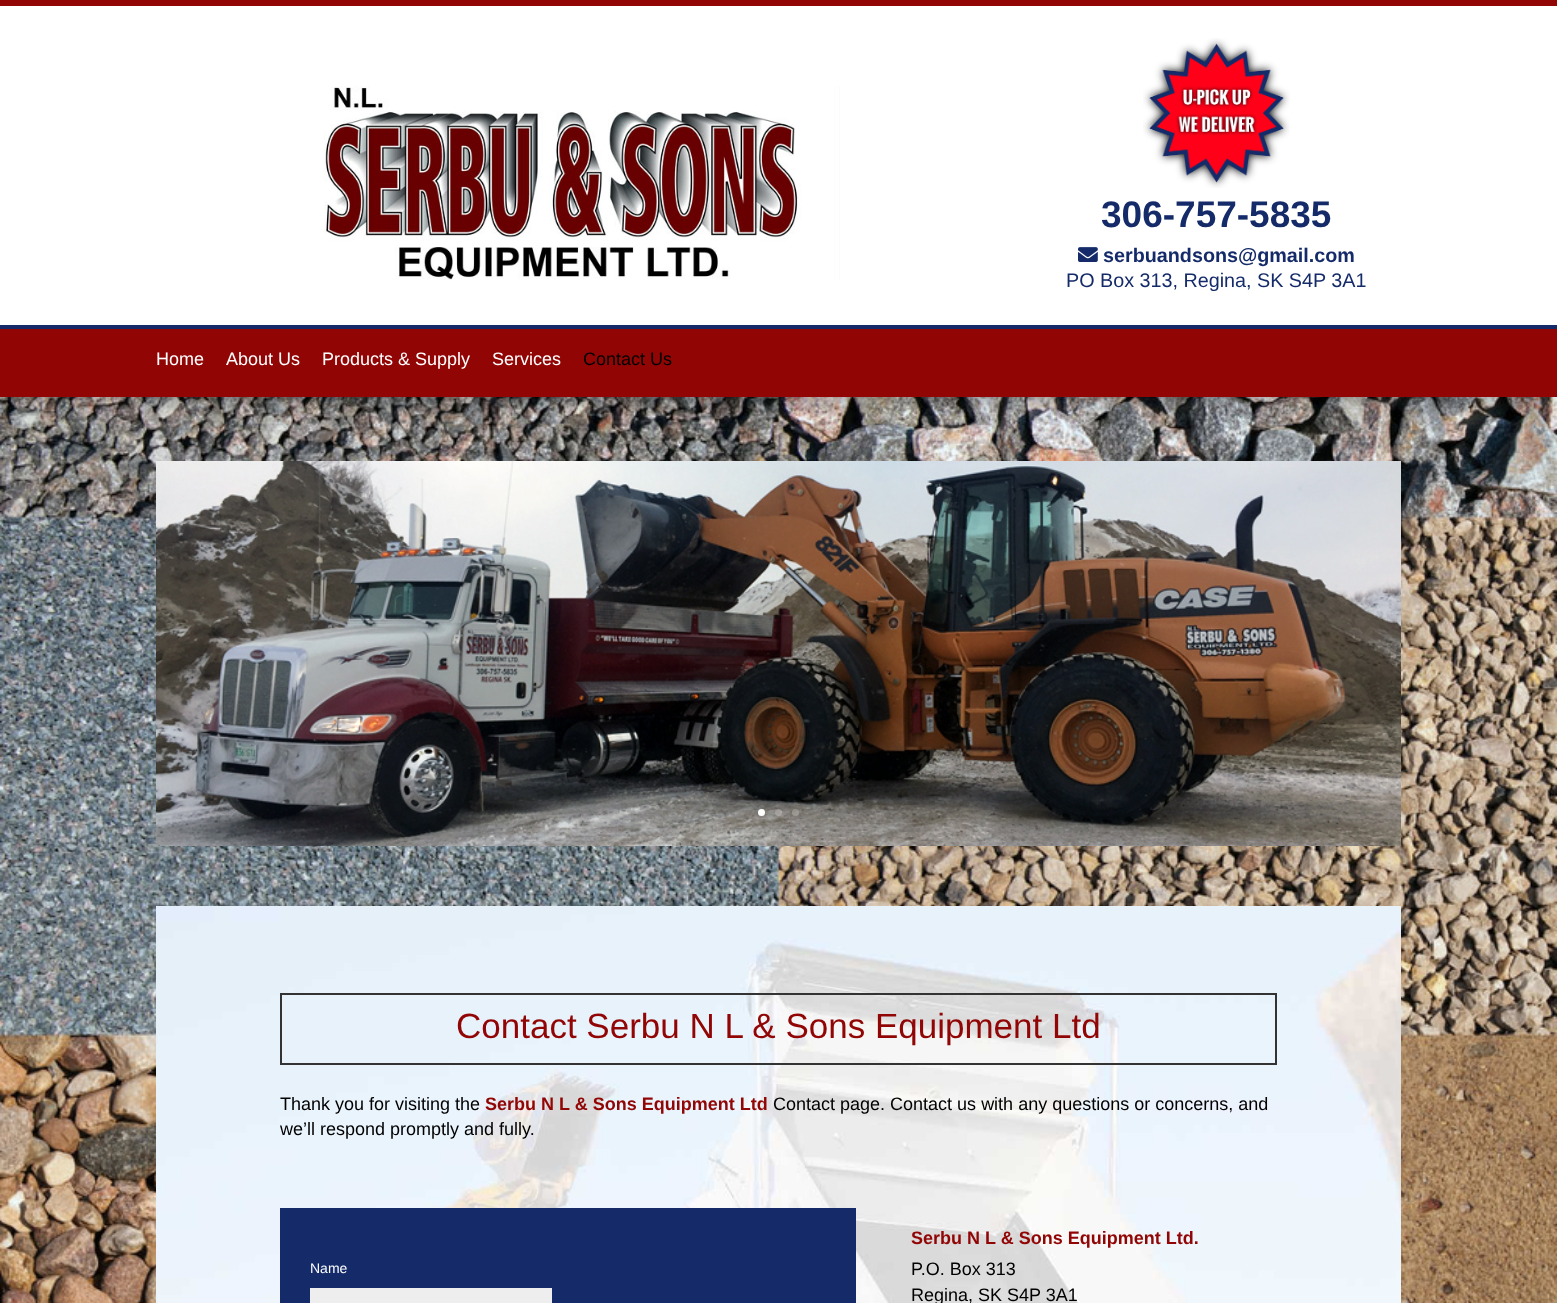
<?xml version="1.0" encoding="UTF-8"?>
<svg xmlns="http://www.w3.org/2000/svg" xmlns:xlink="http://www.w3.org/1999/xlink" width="1557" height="1303">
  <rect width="100%" height="100%" fill="#ffffff" />
  <image x="0" y="397" width="1557" height="906" xlink:href="image1.png" />
  <rect width="1557" height="6" fill="#910505" />
  <image x="324" y="86" width="516" height="194" xlink:href="image2.png" />
  <image x="1143" y="38" width="147" height="150" xlink:href="image3.png" />
  <image x="1078" y="247" width="20" height="15" xlink:href="image4.png" />
  <rect x="6" y="343" width="1545" height="60" fill="#000000" fill-opacity="0.3" filter="blur(9px)" />
  <rect y="329" width="1557" height="68" fill="#910505" />
  <rect y="325" width="1557" height="4" fill="#152b69" />
  <image x="156" y="461" width="1245" height="385" xlink:href="image5.png" />
  <circle cx="761.5" cy="812.5" r="3.5" fill="#ffffff" />
  <circle cx="778.5" cy="812.5" r="3.5" fill="#ffffff" fill-opacity="0.25" />
  <circle cx="795.5" cy="812.5" r="3.5" fill="#ffffff" fill-opacity="0.25" />
  <image x="156" y="906" width="1245" height="397" xlink:href="image6.png" />
  <rect x="281" y="994" width="995" height="70" fill="none" stroke="#333333" stroke-width="2" />
  <rect x="280" y="1208" width="576" height="95" fill="#152b69" />
  <rect x="310" y="1288" width="242" height="15" fill="#eeeeee" />
  <text x="1101" y="227" style="font-family: Liberation Sans; font-size: 37px; font-weight: bold; fill: #152b69">306-757-5835</text>
  <text x="1103" y="262" style="font-family: Liberation Sans; font-size: 19.75px; font-weight: bold; fill: #152b69">serbuandsons@gmail.com</text>
  <text x="1066" y="287" style="font-family: Liberation Sans; font-size: 19.75px; fill: #152b69">PO Box 313, Regina, SK S4P 3A1</text>
  <text x="156" y="365" style="font-family: Liberation Sans; font-size: 18px; fill: #ffffff">Home</text>
  <text x="226" y="365" style="font-family: Liberation Sans; font-size: 18px; fill: #ffffff">About Us</text>
  <text x="322" y="365" style="font-family: Liberation Sans; font-size: 18px; fill: #ffffff">Products &amp; Supply</text>
  <text x="492" y="365" style="font-family: Liberation Sans; font-size: 18px; fill: #ffffff">Services</text>
  <text x="583" y="365" style="font-family: Liberation Sans; font-size: 18px; fill: #000000">Contact Us</text>
  <text x="456" y="1038" style="font-family: Liberation Sans; font-size: 35px; fill: #910505">Contact Serbu N L &amp; Sons Equipment Ltd</text>
  <text x="280" y="1110" style="font-family: Liberation Sans; font-size: 18px; fill: #000000">Thank you for visiting the</text>
  <text x="485" y="1110" style="font-family: Liberation Sans; font-size: 18px; font-weight: bold; fill: #910505">Serbu N L &amp; Sons Equipment Ltd</text>
  <text x="773" y="1110" style="font-family: Liberation Sans; font-size: 18px; fill: #000000">Contact page. Contact us with any questions or concerns, and</text>
  <text x="280" y="1135" style="font-family: Liberation Sans; font-size: 18px; fill: #000000">we’ll respond promptly and fully.</text>
  <text x="310" y="1273" style="font-family: Liberation Sans; font-size: 14px; fill: #ffffff">Name</text>
  <text x="911" y="1244" style="font-family: Liberation Sans; font-size: 18px; font-weight: bold; fill: #910505">Serbu N L &amp; Sons Equipment Ltd.</text>
  <text x="911" y="1275" style="font-family: Liberation Sans; font-size: 18px; fill: #000000">P.O. Box 313</text>
  <text x="911" y="1301" style="font-family: Liberation Sans; font-size: 18px; fill: #000000">Regina, SK S4P 3A1</text>
</svg>
